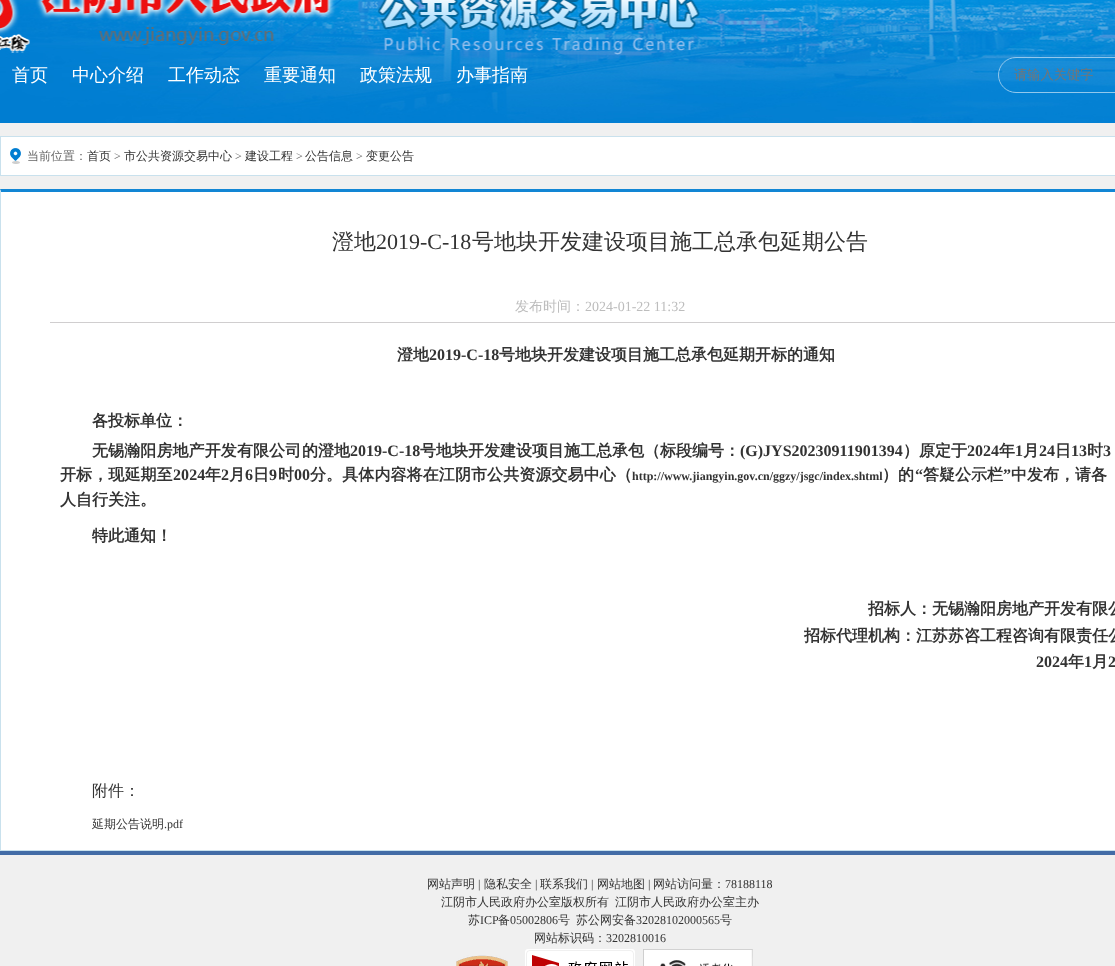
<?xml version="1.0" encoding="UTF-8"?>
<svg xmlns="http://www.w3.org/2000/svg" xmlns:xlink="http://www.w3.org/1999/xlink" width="1115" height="966">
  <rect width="100%" height="100%" fill="#f0f0f0" />
  <image x="0" y="0" width="1115" height="123" xlink:href="image1.png" />
  <rect x="998.5" y="57.5" width="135" height="35" rx="17.5" fill="none" stroke="#92c8ec" />
  <rect x="1" y="137" width="1114" height="38" fill="#ffffff" />
  <image x="10" y="148" width="11" height="16" xlink:href="image2.png" />
  <rect x="0.5" y="136.5" width="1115" height="39" fill="none" stroke="#c9e1ed" />
  <rect x="1" y="192" width="1114" height="658" fill="#ffffff" />
  <path d="M 0 189 h 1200 l -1 3 h -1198 z" fill="#1286d4" />
  <rect y="850" width="1115" height="1" fill="#c9e1ed" />
  <path d="M 0 851 v -662 l 1 3 v 658 z" fill="#c9e1ed" />
  <rect x="50" y="322" width="1065" height="1" fill="#d0cecf" />
  <rect y="851" width="1115" height="4" fill="#426ca6" />
  <image x="456" y="955" width="52" height="11" xlink:href="image3.png" />
  <image x="525" y="949" width="110" height="17" xlink:href="image4.png" />
  <image x="643" y="949" width="110" height="17" xlink:href="image5.png" />
  <text x="12" y="81" style="font-family: WenQuanYi Zen Hei; font-size: 18px; font-weight: 500; fill: #ffffff">首页</text>
  <text x="72" y="81" style="font-family: WenQuanYi Zen Hei; font-size: 18px; font-weight: 500; fill: #ffffff">中心介绍</text>
  <text x="168" y="81" style="font-family: WenQuanYi Zen Hei; font-size: 18px; font-weight: 500; fill: #ffffff">工作动态</text>
  <text x="264" y="81" style="font-family: WenQuanYi Zen Hei; font-size: 18px; font-weight: 500; fill: #ffffff">重要通知</text>
  <text x="360" y="81" style="font-family: WenQuanYi Zen Hei; font-size: 18px; font-weight: 500; fill: #ffffff">政策法规</text>
  <text x="456" y="81" style="font-family: WenQuanYi Zen Hei; font-size: 18px; font-weight: 500; fill: #ffffff">办事指南</text>
  <text x="1014" y="79" style="font-family: WenQuanYi Zen Hei; font-size: 13.25px; font-weight: 500; fill: #757575">请输入关键字</text>
  <text x="27" y="160" style="font-family: WenQuanYi Zen Hei; font-size: 12px; font-weight: 500; fill: #666666">当前位置：</text>
  <text x="87" y="160" style="font-family: WenQuanYi Zen Hei; font-size: 12px; font-weight: 500; fill: #333333">首页</text>
  <text x="114" y="160" style="font-family: Liberation Serif; font-size: 12px; fill: #666666">&gt;</text>
  <text x="124" y="160" style="font-family: WenQuanYi Zen Hei; font-size: 12px; font-weight: 500; fill: #333333">市公共资源交易中心</text>
  <text x="235" y="160" style="font-family: Liberation Serif; font-size: 12px; fill: #666666">&gt;</text>
  <text x="245" y="160" style="font-family: WenQuanYi Zen Hei; font-size: 12px; font-weight: 500; fill: #333333">建设工程</text>
  <text x="296" y="160" style="font-family: Liberation Serif; font-size: 12px; fill: #666666">&gt;</text>
  <text x="305" y="160" style="font-family: WenQuanYi Zen Hei; font-size: 12px; font-weight: 500; fill: #333333">公告信息</text>
  <text x="356" y="160" style="font-family: Liberation Serif; font-size: 12px; fill: #666666">&gt;</text>
  <text x="366" y="160" style="font-family: WenQuanYi Zen Hei; font-size: 12px; font-weight: 500; fill: #333333">变更公告</text>
  <text x="332" y="249" style="font-family: WenQuanYi Zen Hei; font-size: 22px; font-weight: 500; fill: #333333">澄地</text>
  <text x="376" y="249" style="font-family: Liberation Serif; font-size: 22px; fill: #333333">2019-C-18</text>
  <text x="472" y="249" style="font-family: WenQuanYi Zen Hei; font-size: 22px; font-weight: 500; fill: #333333">号地块开发建设项目施工总承包延期公告</text>
  <text x="515" y="311" style="font-family: WenQuanYi Zen Hei; font-size: 14px; font-weight: 500; fill: #bdbdbd">发布时间：</text>
  <text x="585" y="311" style="font-family: Liberation Serif; font-size: 14px; fill: #bdbdbd">2024-01-22 11:32</text>
  <text x="397" y="360" style="font-family: WenQuanYi Zen Hei; font-size: 16px; font-weight: bold; fill: #333333">澄地</text>
  <text x="429" y="360" style="font-family: Liberation Serif; font-size: 16px; font-weight: bold; fill: #333333">2019-C-18</text>
  <text x="499" y="360" style="font-family: WenQuanYi Zen Hei; font-size: 16px; font-weight: bold; fill: #333333">号地块开发建设项目施工总承包延期开标的通知</text>
  <text x="92" y="426" style="font-family: WenQuanYi Zen Hei; font-size: 16px; font-weight: bold; fill: #333333">各投标单位：</text>
  <text x="92" y="456" style="font-family: WenQuanYi Zen Hei; font-size: 16px; font-weight: bold; letter-spacing: 0.1px; fill: #333333">无锡瀚阳房地产开发有限公司</text>
  <text x="302" y="456" style="font-family: WenQuanYi Zen Hei; font-size: 16px; font-weight: bold; fill: #333333">的澄地</text>
  <text x="350" y="456" style="font-family: Liberation Serif; font-size: 16px; font-weight: bold; fill: #333333">2019-C-18</text>
  <text x="420" y="456" style="font-family: WenQuanYi Zen Hei; font-size: 16px; font-weight: bold; fill: #333333">号地块开发建设项目施工总承包（标段编号：</text>
  <text x="740" y="456" style="font-family: Liberation Serif; font-size: 16px; font-weight: bold; fill: #333333">(G)JYS20230911901394</text>
  <text x="903" y="456" style="font-family: WenQuanYi Zen Hei; font-size: 16px; font-weight: bold; fill: #333333">）原定于</text>
  <text x="967" y="456" style="font-family: Liberation Serif; font-size: 16px; font-weight: bold; fill: #333333">2024</text>
  <text x="999" y="456" style="font-family: WenQuanYi Zen Hei; font-size: 16px; font-weight: bold; fill: #333333">年</text>
  <text x="1015" y="456" style="font-family: Liberation Serif; font-size: 16px; font-weight: bold; fill: #333333">1</text>
  <text x="1023" y="456" style="font-family: WenQuanYi Zen Hei; font-size: 16px; font-weight: bold; fill: #333333">月</text>
  <text x="1039" y="456" style="font-family: Liberation Serif; font-size: 16px; font-weight: bold; fill: #333333">24</text>
  <text x="1055" y="456" style="font-family: WenQuanYi Zen Hei; font-size: 16px; font-weight: bold; fill: #333333">日</text>
  <text x="1071" y="456" style="font-family: Liberation Serif; font-size: 16px; font-weight: bold; fill: #333333">13</text>
  <text x="1087" y="456" style="font-family: WenQuanYi Zen Hei; font-size: 16px; font-weight: bold; fill: #333333">时</text>
  <text x="1103" y="456" style="font-family: Liberation Serif; font-size: 16px; font-weight: bold; fill: #333333">3</text>
  <text x="60" y="480" style="font-family: WenQuanYi Zen Hei; font-size: 16px; font-weight: bold; letter-spacing: 0.1px; fill: #333333">开标，现延期至</text>
  <text x="173" y="480" style="font-family: Liberation Serif; font-size: 16px; font-weight: bold; letter-spacing: 0.1px; fill: #333333">2024</text>
  <text x="205" y="480" style="font-family: WenQuanYi Zen Hei; font-size: 16px; font-weight: bold; letter-spacing: 0.1px; fill: #333333">年</text>
  <text x="221" y="480" style="font-family: Liberation Serif; font-size: 16px; font-weight: bold; letter-spacing: 0.1px; fill: #333333">2</text>
  <text x="229" y="480" style="font-family: WenQuanYi Zen Hei; font-size: 16px; font-weight: bold; letter-spacing: 0.1px; fill: #333333">月</text>
  <text x="245" y="480" style="font-family: Liberation Serif; font-size: 16px; font-weight: bold; letter-spacing: 0.1px; fill: #333333">6</text>
  <text x="253" y="480" style="font-family: WenQuanYi Zen Hei; font-size: 16px; font-weight: bold; letter-spacing: 0.1px; fill: #333333">日</text>
  <text x="269" y="480" style="font-family: Liberation Serif; font-size: 16px; font-weight: bold; letter-spacing: 0.1px; fill: #333333">9</text>
  <text x="278" y="480" style="font-family: WenQuanYi Zen Hei; font-size: 16px; font-weight: bold; letter-spacing: 0.1px; fill: #333333">时</text>
  <text x="294" y="480" style="font-family: Liberation Serif; font-size: 16px; font-weight: bold; letter-spacing: 0.1px; fill: #333333">00</text>
  <text x="310" y="480" style="font-family: WenQuanYi Zen Hei; font-size: 16px; font-weight: bold; letter-spacing: 0.1px; fill: #333333">分。具体内容将在江阴市公共资源交易中心（</text>
  <text x="632" y="480" style="font-family: Liberation Serif; font-size: 12px; font-weight: bold; fill: #333333">http://www.jiangyin.gov.cn/ggzy/jsgc/index.shtml</text>
  <text x="882" y="480" style="font-family: WenQuanYi Zen Hei; font-size: 16px; font-weight: bold; fill: #333333">）的</text>
  <text x="915" y="480" style="font-family: Liberation Serif; font-size: 16px; font-weight: bold; fill: #333333">“</text>
  <text x="923" y="480" style="font-family: WenQuanYi Zen Hei; font-size: 16px; font-weight: bold; fill: #333333">答疑公示栏</text>
  <text x="1003" y="480" style="font-family: Liberation Serif; font-size: 16px; font-weight: bold; fill: #333333">”</text>
  <text x="1011" y="480" style="font-family: WenQuanYi Zen Hei; font-size: 16px; font-weight: bold; fill: #333333">中发布，请各</text>
  <text x="60" y="505" style="font-family: WenQuanYi Zen Hei; font-size: 16px; font-weight: bold; fill: #333333">人自行关注。</text>
  <text x="92" y="541" style="font-family: WenQuanYi Zen Hei; font-size: 16px; font-weight: bold; fill: #333333">特此通知！</text>
  <text x="868" y="614" style="font-family: WenQuanYi Zen Hei; font-size: 16px; font-weight: bold; fill: #333333">招标人：无锡瀚阳房地产开发有限公</text>
  <text x="804" y="641" style="font-family: WenQuanYi Zen Hei; font-size: 16px; font-weight: bold; fill: #333333">招标代理机构：江苏苏咨工程咨询有限责任公</text>
  <text x="1036" y="667" style="font-family: Liberation Serif; font-size: 16px; font-weight: bold; fill: #333333">2024</text>
  <text x="1068" y="667" style="font-family: WenQuanYi Zen Hei; font-size: 16px; font-weight: bold; fill: #333333">年</text>
  <text x="1084" y="667" style="font-family: Liberation Serif; font-size: 16px; font-weight: bold; fill: #333333">1</text>
  <text x="1092" y="667" style="font-family: WenQuanYi Zen Hei; font-size: 16px; font-weight: bold; fill: #333333">月</text>
  <text x="1108" y="667" style="font-family: Liberation Serif; font-size: 16px; font-weight: bold; fill: #333333">2</text>
  <text x="92" y="796" style="font-family: WenQuanYi Zen Hei; font-size: 16px; font-weight: 500; fill: #333333">附件：</text>
  <text x="92" y="828" style="font-family: WenQuanYi Zen Hei; font-size: 12px; font-weight: 500; fill: #333333">延期公告说明</text>
  <text x="164" y="828" style="font-family: Liberation Serif; font-size: 12px; fill: #333333">.pdf</text>
  <text x="427" y="888" style="font-family: WenQuanYi Zen Hei; font-size: 12px; font-weight: 500; fill: #333333">网站声明</text>
  <text x="478" y="888" style="font-family: Liberation Serif; font-size: 12px; fill: #333333">|</text>
  <text x="484" y="888" style="font-family: WenQuanYi Zen Hei; font-size: 12px; font-weight: 500; fill: #333333">隐私安全</text>
  <text x="535" y="888" style="font-family: Liberation Serif; font-size: 12px; fill: #333333">|</text>
  <text x="540" y="888" style="font-family: WenQuanYi Zen Hei; font-size: 12px; font-weight: 500; fill: #333333">联系我们</text>
  <text x="591" y="888" style="font-family: Liberation Serif; font-size: 12px; fill: #333333">|</text>
  <text x="597" y="888" style="font-family: WenQuanYi Zen Hei; font-size: 12px; font-weight: 500; fill: #333333">网站地图</text>
  <text x="648" y="888" style="font-family: Liberation Serif; font-size: 12px; fill: #333333">|</text>
  <text x="653" y="888" style="font-family: WenQuanYi Zen Hei; font-size: 12px; font-weight: 500; fill: #333333">网站访问量：</text>
  <text x="725" y="888" style="font-family: Liberation Serif; font-size: 12px; fill: #333333">78188118</text>
  <text x="441" y="906" style="font-family: WenQuanYi Zen Hei; font-size: 12px; font-weight: 500; fill: #333333">江阴市人民政府办公室版权所有</text>
  <text x="615" y="906" style="font-family: WenQuanYi Zen Hei; font-size: 12px; font-weight: 500; fill: #333333">江阴市人民政府办公室主办</text>
  <text x="468" y="924" style="font-family: WenQuanYi Zen Hei; font-size: 12px; font-weight: 500; fill: #333333">苏</text>
  <text x="480" y="924" style="font-family: Liberation Serif; font-size: 12px; fill: #333333">ICP</text>
  <text x="498" y="924" style="font-family: WenQuanYi Zen Hei; font-size: 12px; font-weight: 500; fill: #333333">备</text>
  <text x="510" y="924" style="font-family: Liberation Serif; font-size: 12px; fill: #333333">05002806</text>
  <text x="558" y="924" style="font-family: WenQuanYi Zen Hei; font-size: 12px; font-weight: 500; fill: #333333">号</text>
  <text x="576" y="924" style="font-family: WenQuanYi Zen Hei; font-size: 12px; font-weight: 500; fill: #333333">苏公网安备</text>
  <text x="636" y="924" style="font-family: Liberation Serif; font-size: 12px; fill: #333333">32028102000565</text>
  <text x="720" y="924" style="font-family: WenQuanYi Zen Hei; font-size: 12px; font-weight: 500; fill: #333333">号</text>
  <text x="534" y="942" style="font-family: WenQuanYi Zen Hei; font-size: 12px; font-weight: 500; fill: #333333">网站标识码：</text>
  <text x="606" y="942" style="font-family: Liberation Serif; font-size: 12px; fill: #333333">3202810016</text>
</svg>
